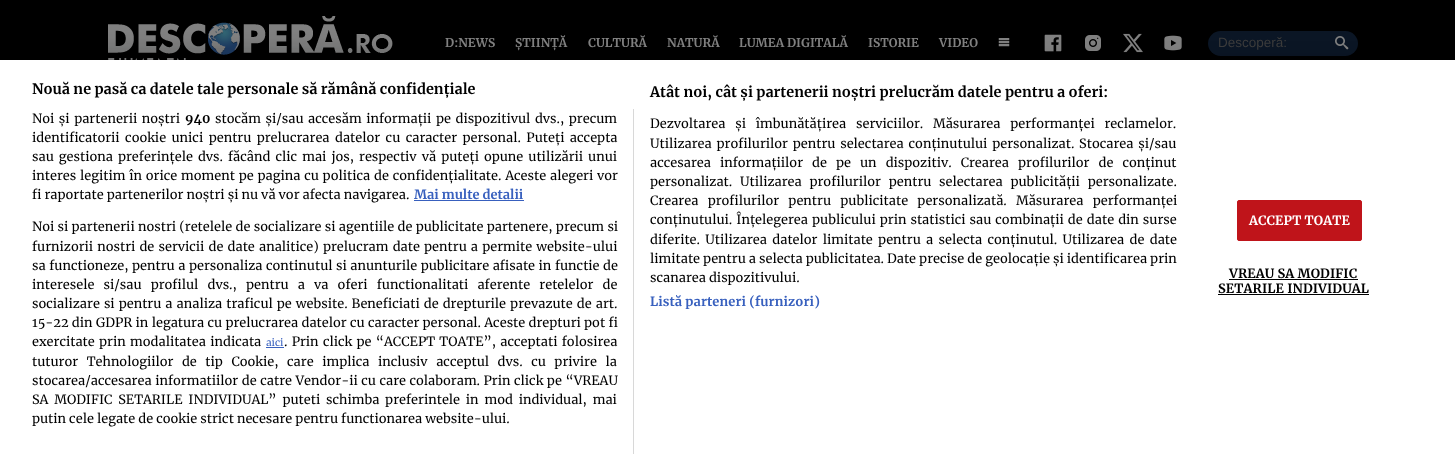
<?xml version="1.0" encoding="UTF-8"?>
<svg xmlns="http://www.w3.org/2000/svg" xmlns:xlink="http://www.w3.org/1999/xlink" width="1455" height="464">
  <rect width="100%" height="100%" fill="#000000" />
  <image x="108" y="16" width="285" height="44" xlink:href="image1.png" />
  <image x="998" y="38" width="12" height="9" xlink:href="image2.png" />
  <image x="1044" y="34" width="18" height="18" xlink:href="image3.png" />
  <image x="1085" y="35" width="16" height="16" xlink:href="image4.png" />
  <image x="1123" y="33" width="20" height="20" xlink:href="image5.png" />
  <image x="1164" y="35" width="18" height="16" xlink:href="image6.png" />
  <rect x="1208" y="31" width="150" height="25" rx="12.5" fill="#0b1625" />
  <image x="1335" y="36" width="14" height="14" xlink:href="image7.png" />
  <rect y="60" width="1455" height="404" fill="#000000" fill-opacity="0.2" filter="blur(9px)" />
  <rect y="60" width="1455" height="404" fill="#ffffff" />
  <rect x="633" y="109" width="1" height="345" fill="#d8d8d8" />
  <rect x="414" y="200" width="110" height="1" fill="#3860be" />
  <rect x="266" y="347" width="18" height="1" fill="#3860be" />
  <rect x="1237.5" y="200.5" width="124" height="40" rx="1.5" fill="#bf141a" stroke="#bf141a" />
  <rect x="1229" y="279" width="129" height="1" fill="#000000" />
  <rect x="1218" y="294" width="151" height="1" fill="#000000" />
  <text x="445" y="47" style="font-family: Merriweather; font-size: 12px; font-weight: bold; fill: #808080">D:NEWS</text>
  <text x="515" y="47" style="font-family: Merriweather; font-size: 12px; font-weight: bold; fill: #808080">ȘTIINȚĂ</text>
  <text x="588" y="47" style="font-family: Merriweather; font-size: 12px; font-weight: bold; fill: #808080">CULTURĂ</text>
  <text x="667" y="47" style="font-family: Merriweather; font-size: 12px; font-weight: bold; fill: #808080">NATURĂ</text>
  <text x="739" y="47" style="font-family: Merriweather; font-size: 12px; font-weight: bold; fill: #808080">LUMEA DIGITALĂ</text>
  <text x="868" y="47" style="font-family: Merriweather; font-size: 12px; font-weight: bold; fill: #808080">ISTORIE</text>
  <text x="939" y="47" style="font-family: Merriweather; font-size: 12px; font-weight: bold; fill: #808080">VIDEO</text>
  <text x="1218" y="47" style="font-family: Liberation Sans; font-size: 13.5px; fill: #3b3b3b">Descoperă:</text>
  <text x="32" y="94" style="font-family: Merriweather; font-size: 14.4px; font-weight: bold; fill: #000000">Nouă ne pasă ca datele tale personale să rămână confidențiale</text>
  <text x="650" y="97" style="font-family: Merriweather; font-size: 14.4px; font-weight: bold; fill: #000000">Atât noi, cât și partenerii noștri prelucrăm datele pentru a oferi:</text>
  <text x="650" y="128" word-spacing="6.75" style="font-family: Merriweather; font-size: 12.8px; fill: #000000">Dezvoltarea și îmbunătățirea serviciilor. Măsurarea performanței reclamelor.</text>
  <text x="650" y="148" word-spacing="1.75" style="font-family: Merriweather; font-size: 12.8px; fill: #000000">Utilizarea profilurilor pentru selectarea conținutului personalizat. Stocarea și/sau</text>
  <text x="650" y="167" word-spacing="6" style="font-family: Merriweather; font-size: 12.8px; fill: #000000">accesarea informațiilor de pe un dispozitiv. Crearea profilurilor de conținut</text>
  <text x="650" y="186" word-spacing="4.75" style="font-family: Merriweather; font-size: 12.8px; fill: #000000">personalizat. Utilizarea profilurilor pentru selectarea publicității personalizate.</text>
  <text x="650" y="205" word-spacing="6.25" style="font-family: Merriweather; font-size: 12.8px; fill: #000000">Crearea profilurilor pentru publicitate personalizată. Măsurarea performanței</text>
  <text x="650" y="224" word-spacing="1" style="font-family: Merriweather; font-size: 12.8px; fill: #000000">conținutului. Înțelegerea publicului prin statistici sau combinații de date din surse</text>
  <text x="650" y="244" word-spacing="2.25" style="font-family: Merriweather; font-size: 12.8px; fill: #000000">diferite. Utilizarea datelor limitate pentru a selecta conținutul. Utilizarea de date</text>
  <text x="650" y="263" style="font-family: Merriweather; font-size: 12.8px; fill: #000000">limitate pentru a selecta publicitatea. Date precise de geolocație și identificarea prin</text>
  <text x="650" y="282" style="font-family: Merriweather; font-size: 12.8px; fill: #000000">scanarea dispozitivului.</text>
  <text x="650" y="306" style="font-family: Merriweather; font-size: 12.8px; font-weight: bold; letter-spacing: 0.1px; fill: #3860be">Listă parteneri (furnizori)</text>
  <text x="32" y="123" word-spacing="1.5" style="font-family: Merriweather; font-size: 12.8px; fill: #000000">Noi și partenerii noștri</text>
  <text x="185" y="123" style="font-family: Merriweather; font-size: 12.8px; font-weight: bold; fill: #000000">940</text>
  <text x="215" y="123" word-spacing="1.5" style="font-family: Merriweather; font-size: 12.8px; fill: #000000">stocăm și/sau accesăm informații pe dispozitivul dvs., precum</text>
  <text x="32" y="142" word-spacing="2.4" style="font-family: Merriweather; font-size: 12.8px; fill: #000000">identificatorii cookie unici pentru prelucrarea datelor cu caracter personal. Puteți accepta</text>
  <text x="32" y="161" word-spacing="2" style="font-family: Merriweather; font-size: 12.8px; fill: #000000">sau gestiona preferințele dvs. făcând clic mai jos, respectiv vă puteți opune utilizării unui</text>
  <text x="32" y="180" word-spacing="0.75" style="font-family: Merriweather; font-size: 12.8px; fill: #000000">interes legitim în orice moment pe pagina cu politica de confidențialitate. Aceste alegeri vor</text>
  <text x="32" y="199" style="font-family: Merriweather; font-size: 12.8px; fill: #000000">fi raportate partenerilor noștri și nu vă vor afecta navigarea.</text>
  <text x="414" y="199" style="font-family: Merriweather; font-size: 12.8px; font-weight: bold; fill: #3860be">Mai multe detalii</text>
  <text x="32" y="231" word-spacing="0.25" style="font-family: Merriweather; font-size: 12.8px; fill: #000000">Noi si partenerii nostri (retelele de socializare si agentiile de publicitate partenere, precum si</text>
  <text x="32" y="251" word-spacing="1.1" style="font-family: Merriweather; font-size: 12.8px; fill: #000000">furnizorii nostri de servicii de date analitice) prelucram date pentru a permite website-ului</text>
  <text x="32" y="270" word-spacing="0.5" style="font-family: Merriweather; font-size: 12.8px; fill: #000000">sa functioneze, pentru a personaliza continutul si anunturile publicitare afisate in functie de</text>
  <text x="32" y="289" word-spacing="6.1" style="font-family: Merriweather; font-size: 12.8px; fill: #000000">interesele si/sau profilul dvs., pentru a va oferi functionalitati aferente retelelor de</text>
  <text x="32" y="308" word-spacing="1" style="font-family: Merriweather; font-size: 12.8px; fill: #000000">socializare si pentru a analiza traficul pe website. Beneficiati de drepturile prevazute de art.</text>
  <text x="32" y="327" word-spacing="0.25" style="font-family: Merriweather; font-size: 12.8px; fill: #000000">15-22 din GDPR in legatura cu prelucrarea datelor cu caracter personal. Aceste drepturi pot fi</text>
  <text x="32" y="346" word-spacing="1.25" style="font-family: Merriweather; font-size: 12.8px; fill: #000000">exercitate prin modalitatea indicata</text>
  <text x="266" y="346" style="font-family: Merriweather; font-size: 10px; fill: #3860be">aici</text>
  <text x="284" y="346" word-spacing="1.25" style="font-family: Merriweather; font-size: 12.8px; fill: #000000">. Prin click pe “ACCEPT TOATE”, acceptati folosirea</text>
  <text x="32" y="366" word-spacing="5.5" style="font-family: Merriweather; font-size: 12.8px; fill: #000000">tuturor Tehnologiilor de tip Cookie, care implica inclusiv acceptul dvs. cu privire la</text>
  <text x="32" y="385" word-spacing="0.5" style="font-family: Merriweather; font-size: 12.8px; fill: #000000">stocarea/accesarea informatiilor de catre Vendor-ii cu care colaboram. Prin click pe “VREAU</text>
  <text x="32" y="404" word-spacing="2.75" style="font-family: Merriweather; font-size: 12.8px; fill: #000000">SA MODIFIC SETARILE INDIVIDUAL” puteti schimba preferintele in mod individual, mai</text>
  <text x="32" y="423" style="font-family: Merriweather; font-size: 12.8px; fill: #000000">putin cele legate de cookie strict necesare pentru functionarea website-ului.</text>
  <text x="1249" y="225" style="font-family: Merriweather; font-size: 12.8px; font-weight: bold; letter-spacing: 0.1px; fill: #ffffff">ACCEPT TOATE</text>
  <text x="1229" y="278" style="font-family: Merriweather; font-size: 12.8px; font-weight: bold; letter-spacing: 0.1px; fill: #000000">VREAU SA MODIFIC</text>
  <text x="1218" y="293" style="font-family: Merriweather; font-size: 12.8px; font-weight: bold; letter-spacing: 0.1px; fill: #000000">SETARILE INDIVIDUAL</text>
</svg>
